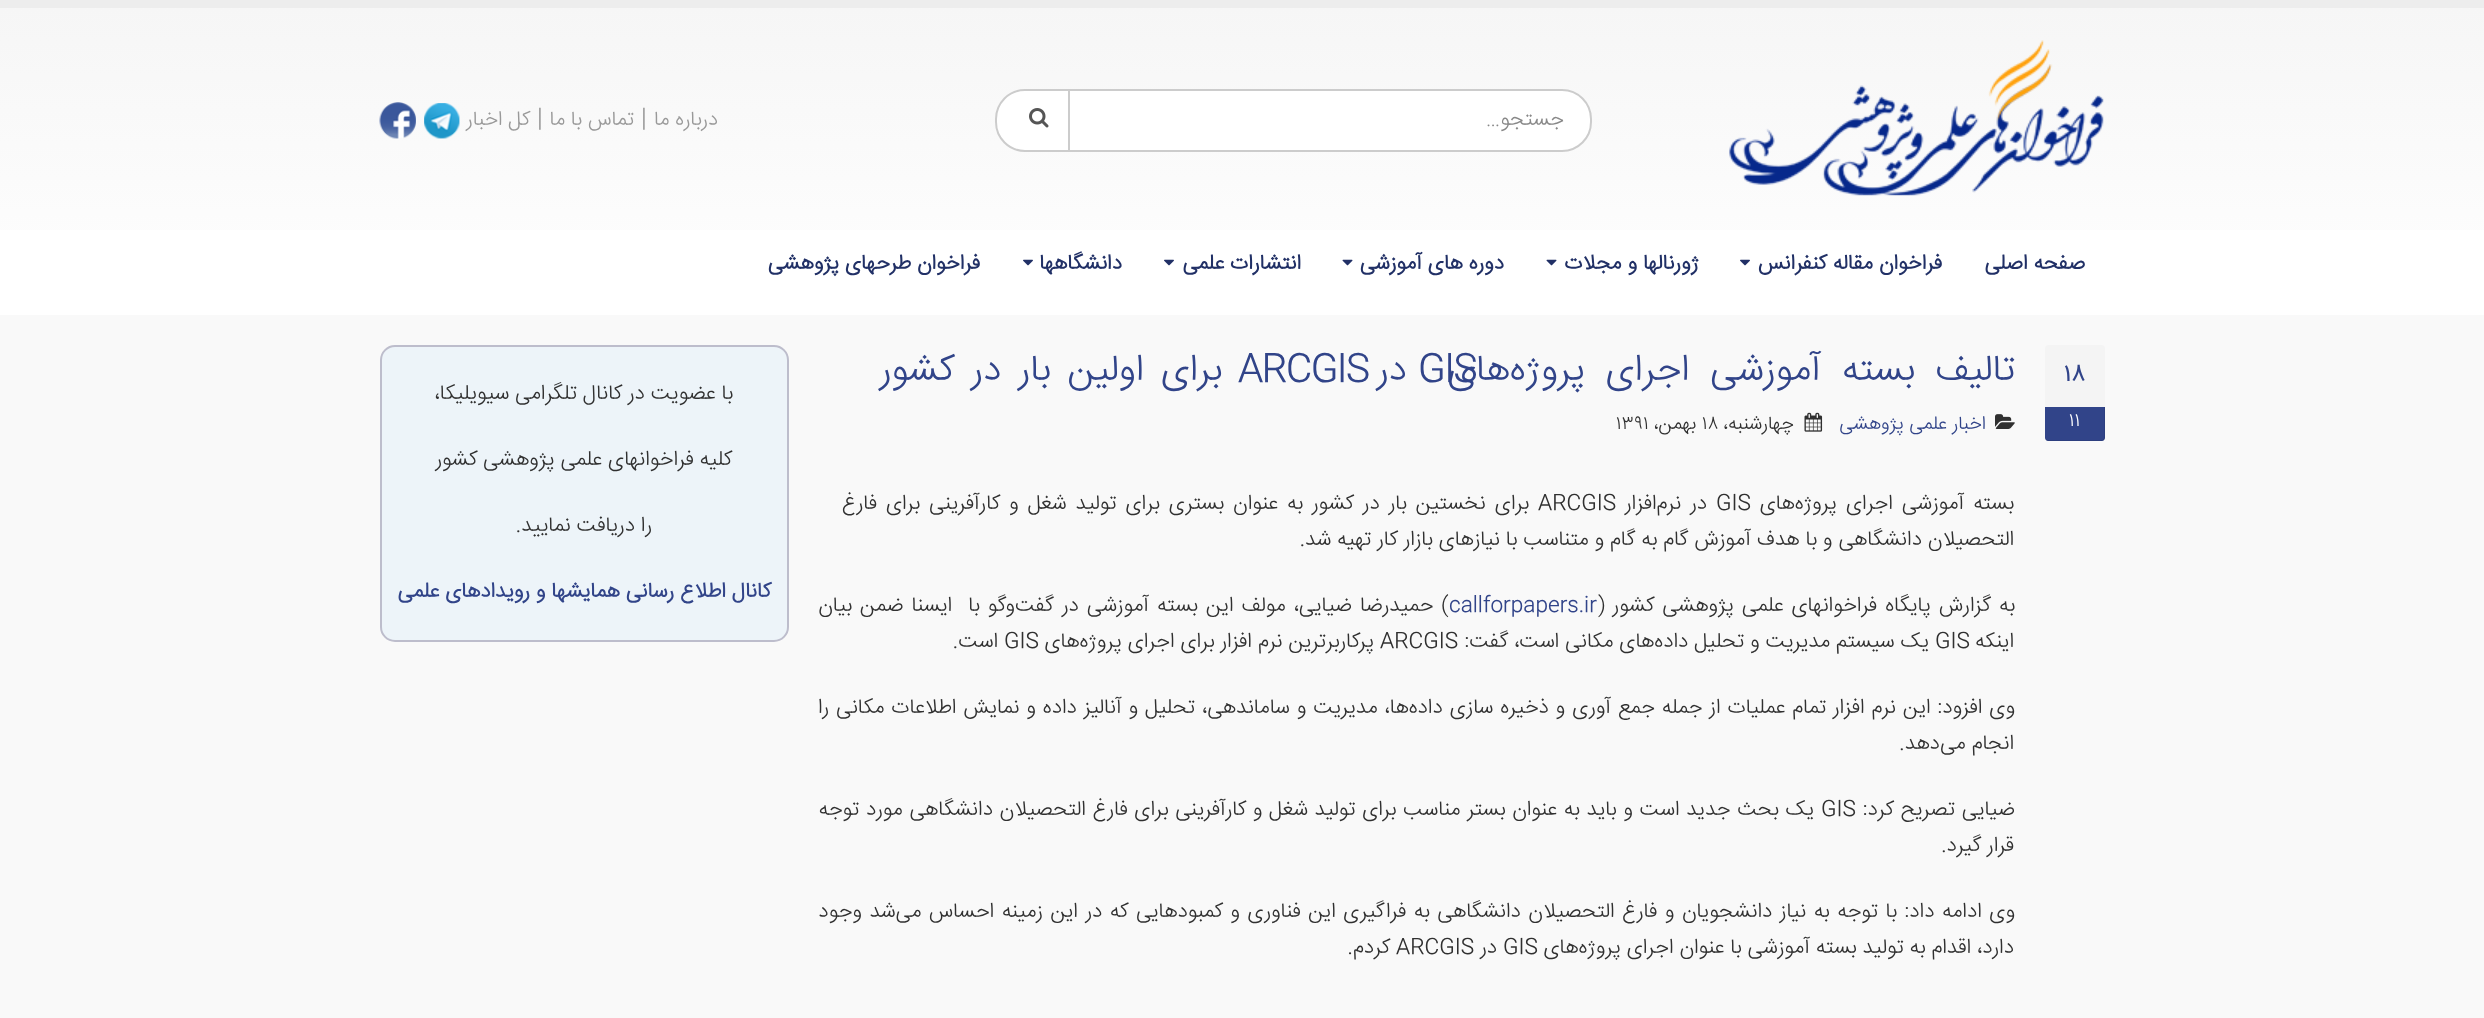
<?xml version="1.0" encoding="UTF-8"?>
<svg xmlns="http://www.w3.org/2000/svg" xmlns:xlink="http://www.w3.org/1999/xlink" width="2484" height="1018">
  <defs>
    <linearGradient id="g1" gradientUnits="userSpaceOnUse" x1="1242" y1="7.5" x2="1242" y2="315"><stop offset="0" stop-color="#f6f6f6" /><stop offset="1" stop-color="#ffffff" /></linearGradient>
  </defs>
  <rect width="100%" height="100%" fill="#ffffff" />
  <rect y="8" width="2484" height="222" fill="url(#g1)" />
  <rect width="2484" height="8" fill="#ededed" />
  <image x="1729" y="40" width="375" height="156" xlink:href="image1.png" />
  <rect x="996" y="90" width="595" height="61" rx="29" fill="#ffffff" stroke="#cccccc" stroke-width="2" />
  <rect x="1068" y="90" width="2" height="60" fill="#cccccc" />
  <image x="1029" y="108" width="20" height="20" xlink:href="image2.png" />
  <image x="424" y="103" width="36" height="36" xlink:href="image3.png" />
  <image x="379" y="102" width="37" height="37" xlink:href="image4.png" />
  <image x="1740" y="259" width="10" height="7" xlink:href="image5.png" />
  <image x="1546" y="259" width="11" height="7" xlink:href="image6.png" />
  <image x="1342" y="259" width="11" height="7" xlink:href="image6.png" />
  <image x="1164" y="259" width="10" height="7" xlink:href="image5.png" />
  <image x="1023" y="259" width="10" height="7" xlink:href="image5.png" />
  <rect y="315" width="2484" height="703" fill="#f9f9f9" />
  <path d="M 2048 345 h 54 c 1.5 0 3 1.5 3 3 v 59 h -60 v -59 c 0 -1.5 1.5 -3 3 -3 z" fill="#f4f4f4" />
  <path d="M 2045 407 h 60 v 31 c 0 1.5 -1.5 3 -3 3 h -54 c -1.5 0 -3 -1.5 -3 -3 z" fill="#314489" />
  <path d="M 2045 439 c 0 1 2 2 3 2 h 54 c 2 0 3 -1 3 -3 v -31 h -1 v 29 c 0 2 -1 4 -2 4 h -54 c -1 0 -2 -1 -3 -1 z" fill="#000000" fill-opacity="0.07" />
  <image x="1995" y="414" width="20" height="15" xlink:href="image7.png" />
  <image x="1804" y="412" width="19" height="20" xlink:href="image8.png" />
  <rect x="381" y="346" width="407" height="295" rx="14" fill="#edf4f9" stroke="#bdbdcc" stroke-width="2" />
  <text x="1564" y="125" style="font-family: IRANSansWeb; font-size: 21px; font-weight: 300; direction: rtl; fill: #888888">جستجو…</text>
  <text x="718" y="125" style="font-family: IRANSansWeb; font-size: 20.5px; font-weight: 300; direction: rtl; fill: #999999">درباره ما</text>
  <text x="641" y="125" style="font-family: IRANSansWeb; font-size: 24px; font-weight: 300; fill: #999999">|</text>
  <text x="634" y="125" style="font-family: IRANSansWeb; font-size: 20.5px; font-weight: 300; direction: rtl; fill: #999999">تماس با ما</text>
  <text x="537" y="125" style="font-family: IRANSansWeb; font-size: 24px; font-weight: 300; fill: #999999">|</text>
  <text x="530" y="125" style="font-family: IRANSansWeb; font-size: 20.5px; font-weight: 300; direction: rtl; fill: #999999">کل اخبار</text>
  <text x="2085" y="269" style="font-family: IRANSansWeb; font-size: 21px; font-weight: bold; direction: rtl; fill: #213066">صفحه اصلی</text>
  <text x="1942" y="269" style="font-family: IRANSansWeb; font-size: 21px; font-weight: bold; direction: rtl; fill: #213066">فراخوان مقاله کنفرانس</text>
  <text x="1699" y="269" style="font-family: IRANSansWeb; font-size: 21px; font-weight: bold; direction: rtl; fill: #213066">ژورنالها و مجلات</text>
  <text x="1504" y="269" style="font-family: IRANSansWeb; font-size: 21px; font-weight: bold; direction: rtl; fill: #213066">دوره های آموزشی</text>
  <text x="1301" y="269" style="font-family: IRANSansWeb; font-size: 21px; font-weight: bold; direction: rtl; fill: #213066">انتشارات علمی</text>
  <text x="1122" y="269" style="font-family: IRANSansWeb; font-size: 21px; font-weight: bold; direction: rtl; fill: #213066">دانشگاهها</text>
  <text x="980" y="269" style="font-family: IRANSansWeb; font-size: 21px; font-weight: bold; direction: rtl; fill: #213066">فراخوان طرحهای پژوهشی</text>
  <text x="2064" y="381" style="font-family: IRANSansWeb; font-size: 24px; font-weight: bold; fill: #314489">۱۸</text>
  <text x="2069" y="426" style="font-family: IRANSansWeb; font-size: 19px; font-weight: 300; fill: #ffffff">۱۱</text>
  <text x="2015" y="380" word-spacing="10" style="font-family: IRANSansWeb; font-size: 37.5px; font-weight: 300; letter-spacing: -1.5px; direction: rtl; fill: #314489">تالیف بسته آموزشی اجرای پروژه‌های</text>
  <text x="1418" y="380" style="font-family: IRANSansWeb; font-size: 37.5px; font-weight: 300; letter-spacing: -1.5px; fill: #314489">GIS</text>
  <text x="1407" y="380" style="font-family: IRANSansWeb; font-size: 37.5px; font-weight: 300; letter-spacing: -1.5px; direction: rtl; fill: #314489">در</text>
  <text x="1238" y="380" style="font-family: IRANSansWeb; font-size: 37.5px; font-weight: 300; letter-spacing: -1.5px; fill: #314489">ARCGIS</text>
  <text x="1222" y="380" word-spacing="6.5" style="font-family: IRANSansWeb; font-size: 37.5px; font-weight: 300; letter-spacing: -1.5px; direction: rtl; fill: #314489">برای اولین بار در کشور</text>
  <text x="1986" y="429" style="font-family: IRANSansWeb; font-size: 19px; font-weight: 300; direction: rtl; fill: #314489">اخبار علمی پژوهشی</text>
  <text x="1794" y="429" style="font-family: IRANSansWeb; font-size: 19px; font-weight: 300; direction: rtl; fill: #303030">چهارشنبه،</text>
  <text x="1702" y="429" style="font-family: IRANSansWeb; font-size: 19px; font-weight: 300; fill: #303030">۱۸</text>
  <text x="1696" y="429" style="font-family: IRANSansWeb; font-size: 19px; font-weight: 300; direction: rtl; fill: #303030">بهمن،</text>
  <text x="1616" y="429" style="font-family: IRANSansWeb; font-size: 19px; font-weight: 300; fill: #303030">۱۳۹۱</text>
  <text x="2014" y="509" word-spacing="3.1" style="font-family: IRANSansWeb; font-size: 21px; font-weight: 300; direction: rtl; fill: #303030">بسته آموزشی اجرای پروژه‌های</text>
  <text x="1716" y="509" style="font-family: IRANSansWeb; font-size: 21px; font-weight: 300; fill: #303030">GIS</text>
  <text x="1707" y="509" word-spacing="3.1" style="font-family: IRANSansWeb; font-size: 21px; font-weight: 300; direction: rtl; fill: #303030">در نرم‌افزار</text>
  <text x="1538" y="509" style="font-family: IRANSansWeb; font-size: 21px; font-weight: 300; fill: #303030">ARCGIS</text>
  <text x="1529" y="509" word-spacing="3.1" style="font-family: IRANSansWeb; font-size: 21px; font-weight: 300; direction: rtl; fill: #303030">برای نخستین بار در کشور به عنوان بستری برای تولید شغل و کارآفرینی برای فارغ</text>
  <text x="2014" y="545" style="font-family: IRANSansWeb; font-size: 21px; font-weight: 300; direction: rtl; fill: #303030">التحصیلان دانشگاهی و با هدف آموزش گام به گام و متناسب با نیازهای بازار کار تهیه شد.</text>
  <text x="2015" y="611" word-spacing="2.1" style="font-family: IRANSansWeb; font-size: 21px; font-weight: 300; direction: rtl; fill: #303030">به گزارش پایگاه فراخوانهای علمی پژوهشی کشور (</text>
  <text x="1449" y="611" style="font-family: IRANSansWeb; font-size: 21px; font-weight: 300; fill: #314489">callforpapers.ir</text>
  <text x="1449" y="611" word-spacing="2.1" style="font-family: IRANSansWeb; font-size: 21px; font-weight: 300; direction: rtl; fill: #303030" xml:space="preserve">) حمیدرضا ضیایی، مولف این بسته آموزشی در گفت‌وگو با  ایسنا ضمن بیان</text>
  <text x="2014" y="647" style="font-family: IRANSansWeb; font-size: 21px; font-weight: 300; direction: rtl; fill: #303030">اینکه</text>
  <text x="1935" y="647" style="font-family: IRANSansWeb; font-size: 21px; font-weight: 300; fill: #303030">GIS</text>
  <text x="1929" y="647" style="font-family: IRANSansWeb; font-size: 21px; font-weight: 300; direction: rtl; fill: #303030">یک سیستم مدیریت و تحلیل داده‌های مکانی است، گفت:</text>
  <text x="1380" y="647" style="font-family: IRANSansWeb; font-size: 21px; font-weight: 300; fill: #303030">ARCGIS</text>
  <text x="1374" y="647" style="font-family: IRANSansWeb; font-size: 21px; font-weight: 300; direction: rtl; fill: #303030">پرکاربرترین نرم افزار برای اجرای پروژه‌های</text>
  <text x="1004" y="647" style="font-family: IRANSansWeb; font-size: 21px; font-weight: 300; fill: #303030">GIS</text>
  <text x="998" y="647" style="font-family: IRANSansWeb; font-size: 21px; font-weight: 300; direction: rtl; fill: #303030">است.</text>
  <text x="2015" y="713" word-spacing="1" style="font-family: IRANSansWeb; font-size: 21px; font-weight: 300; direction: rtl; fill: #303030">وی افزود: این نرم افزار تمام عملیات از جمله جمع آوری و ذخیره سازی داده‌ها، مدیریت و ساماندهی، تحلیل و آنالیز داده و نمایش اطلاعات مکانی را</text>
  <text x="2014" y="749" style="font-family: IRANSansWeb; font-size: 21px; font-weight: 300; direction: rtl; fill: #303030">انجام می‌دهد.</text>
  <text x="2015" y="815" word-spacing="1" style="font-family: IRANSansWeb; font-size: 21px; font-weight: 300; direction: rtl; fill: #303030">ضیایی تصریح کرد:</text>
  <text x="1821" y="815" style="font-family: IRANSansWeb; font-size: 21px; font-weight: 300; fill: #303030">GIS</text>
  <text x="1814" y="815" word-spacing="0.75" style="font-family: IRANSansWeb; font-size: 21px; font-weight: 300; direction: rtl; fill: #303030">یک بحث جدید است و باید به عنوان بستر مناسب برای تولید شغل و کارآفرینی برای فارغ التحصیلان دانشگاهی مورد توجه</text>
  <text x="2014" y="851" style="font-family: IRANSansWeb; font-size: 21px; font-weight: 300; direction: rtl; fill: #303030">قرار گیرد.</text>
  <text x="2015" y="917" word-spacing="1.6" style="font-family: IRANSansWeb; font-size: 21px; font-weight: 300; direction: rtl; fill: #303030">وی ادامه داد: با توجه به نیاز دانشجویان و فارغ التحصیلان دانشگاهی به فراگیری این فناوری و کمبودهایی که در این زمینه احساس می‌شد وجود</text>
  <text x="2014" y="953" style="font-family: IRANSansWeb; font-size: 21px; font-weight: 300; direction: rtl; fill: #303030">دارد، اقدام به تولید بسته آموزشی با عنوان اجرای پروژه‌های</text>
  <text x="1503" y="953" style="font-family: IRANSansWeb; font-size: 21px; font-weight: 300; fill: #303030">GIS</text>
  <text x="1497" y="953" style="font-family: IRANSansWeb; font-size: 21px; font-weight: 300; direction: rtl; fill: #303030">در</text>
  <text x="1396" y="953" style="font-family: IRANSansWeb; font-size: 21px; font-weight: 300; fill: #303030">ARCGIS</text>
  <text x="1390" y="953" style="font-family: IRANSansWeb; font-size: 21px; font-weight: 300; direction: rtl; fill: #303030">کردم.</text>
  <text x="733" y="399" style="font-family: IRANSansWeb; font-size: 21px; font-weight: 300; direction: rtl; fill: #303030">با عضویت در کانال تلگرامی سیویلیکا،</text>
  <text x="732" y="465" style="font-family: IRANSansWeb; font-size: 21px; font-weight: 300; direction: rtl; fill: #303030">کلیه فراخوانهای علمی پژوهشی کشور</text>
  <text x="652" y="531" style="font-family: IRANSansWeb; font-size: 21px; font-weight: 300; direction: rtl; fill: #303030">را دریافت نمایید.</text>
  <text x="771" y="597" style="font-family: IRANSansWeb; font-size: 21px; font-weight: bold; direction: rtl; fill: #314489">کانال اطلاع رسانی همایشها و رویدادهای علمی</text>
</svg>
